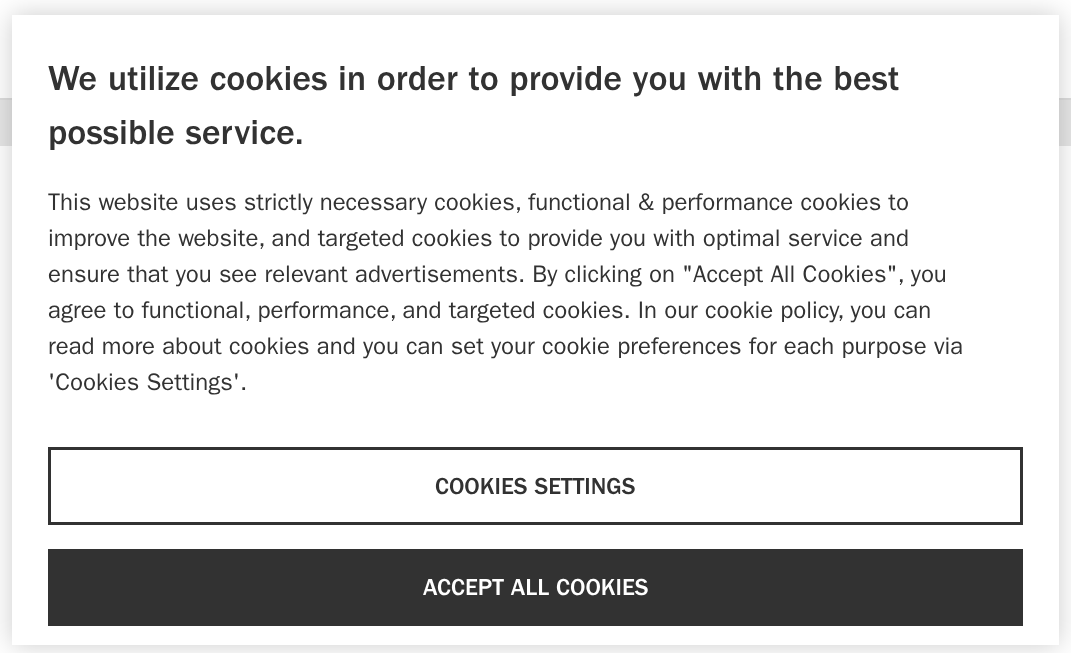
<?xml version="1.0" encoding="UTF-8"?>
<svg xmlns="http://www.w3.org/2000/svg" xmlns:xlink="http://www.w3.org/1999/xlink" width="1071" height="653">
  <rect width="100%" height="100%" fill="#ffffff" />
  <rect y="98" width="1071" height="2" fill="#dddddd" />
  <rect y="100" width="1071" height="46" fill="#e6e6e6" />
  <rect x="12" y="15" width="1047" height="630" fill="#000000" fill-opacity="0.2" filter="blur(13.5px)" />
  <rect x="12" y="15" width="1047" height="630" fill="#ffffff" />
  <rect x="49.5" y="448.5" width="972" height="75" fill="none" stroke="#323232" stroke-width="3" />
  <rect x="48" y="549" width="975" height="77" fill="#323232" />
  <text x="48" y="90" style="font-family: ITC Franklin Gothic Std; font-size: 36px; font-weight: 500; fill: #323232">We utilize cookies in order to provide you with the best</text>
  <text x="48" y="144" style="font-family: ITC Franklin Gothic Std; font-size: 36px; font-weight: 500; fill: #323232">possible service.</text>
  <text x="48" y="210" style="font-family: ITC Franklin Gothic Std; font-size: 24px; fill: #323232">This website uses strictly necessary cookies, functional &amp; performance cookies to</text>
  <text x="48" y="246" style="font-family: ITC Franklin Gothic Std; font-size: 24px; fill: #323232">improve the website, and targeted cookies to provide you with optimal service and</text>
  <text x="48" y="282" style="font-family: ITC Franklin Gothic Std; font-size: 24px; fill: #323232">ensure that you see relevant advertisements. By clicking on "Accept All Cookies", you</text>
  <text x="48" y="318" style="font-family: ITC Franklin Gothic Std; font-size: 24px; fill: #323232">agree to functional, performance, and targeted cookies. In our cookie policy, you can</text>
  <text x="48" y="354" style="font-family: ITC Franklin Gothic Std; font-size: 24px; fill: #323232">read more about cookies and you can set your cookie preferences for each purpose via</text>
  <text x="48" y="390" style="font-family: ITC Franklin Gothic Std; font-size: 24px; fill: #323232">'Cookies Settings'.</text>
  <text x="435" y="494" style="font-family: ITC Franklin Gothic Std; font-size: 24px; font-weight: 500; fill: #323232">COOKIES SETTINGS</text>
  <text x="423" y="595" style="font-family: ITC Franklin Gothic Std; font-size: 24px; font-weight: 500; fill: #ffffff">ACCEPT ALL COOKIES</text>
</svg>
